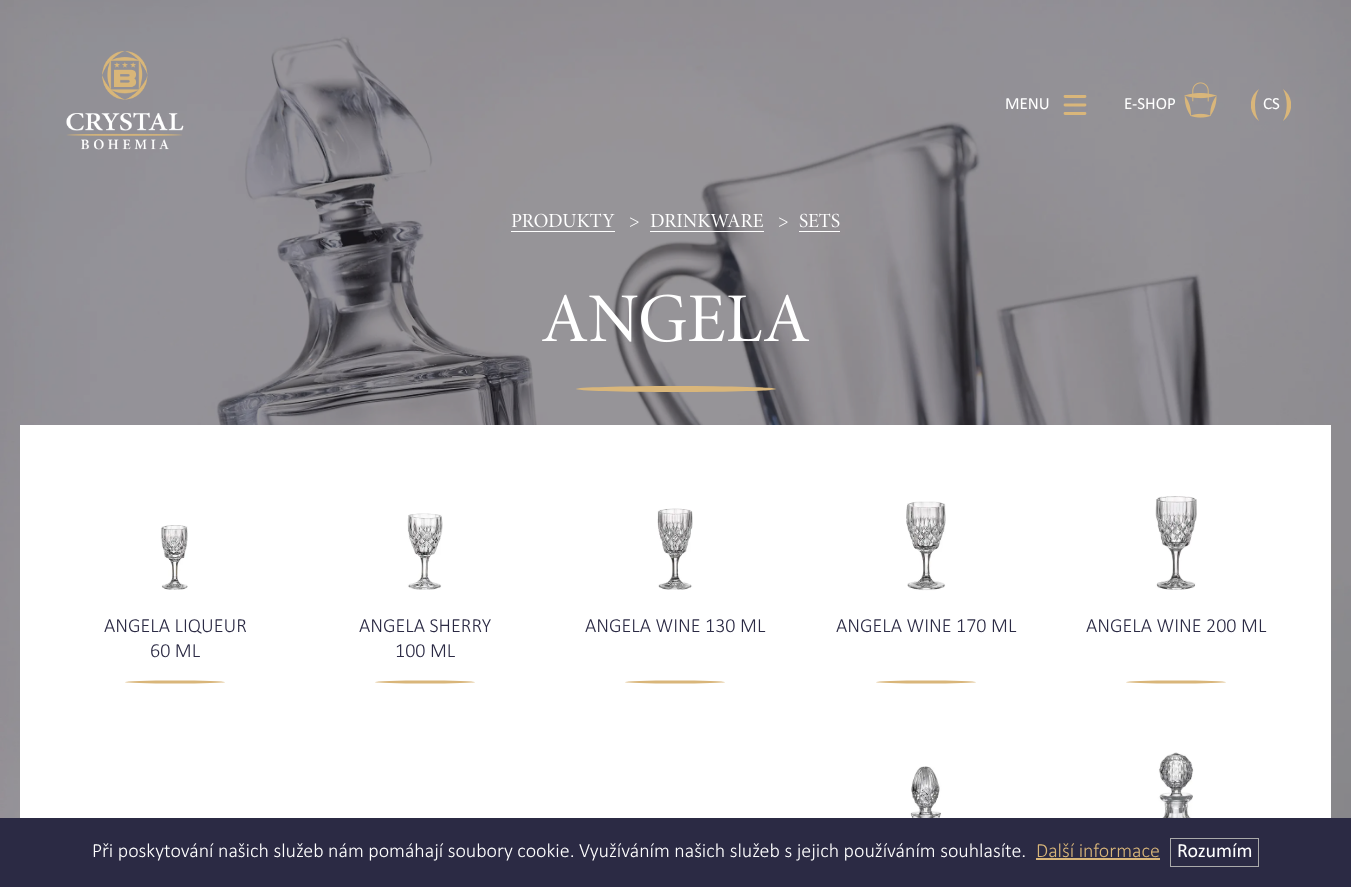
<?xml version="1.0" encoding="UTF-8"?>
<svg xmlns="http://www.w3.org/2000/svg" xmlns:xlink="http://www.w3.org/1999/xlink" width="1351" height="887">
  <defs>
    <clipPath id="clip1"><rect x="1251" y="85" width="40" height="40" /></clipPath>
  </defs>
  <rect width="100%" height="100%" fill="#ffffff" />
  <image x="0" y="0" width="1351" height="818" xlink:href="image3.png" />
  <image x="66" y="51" width="118" height="99" xlink:href="image1.png" />
  <path d="M 1085 96.5 h -20 m 20 8.5 h -20 m 0 8.5 h 20" fill="none" stroke="#d9b67a" stroke-width="2.8" stroke-linecap="round" />
  <image x="1184" y="82" width="33" height="36" xlink:href="image2.png" />
  <g clip-path="url(#clip1)">
    <path d="M 1283 121 c 5 -10 5 -22 0 -32 c 11 8 11 24 0 32 z m -28 -16 c 0 6 1 11 4 16 c -11 -8 -11 -24 0 -32 c -3 5 -4 10 -4 16 z" fill="#d9b67a" fill-rule="evenodd" />
  </g>
  <image x="511" y="213" width="104" height="15" xlink:href="image4.png" />
  <image x="630" y="217" width="9" height="10" xlink:href="image5.png" />
  <rect x="511" y="231" width="104" height="1" fill="#ffffff" />
  <image x="650" y="213" width="113" height="15" xlink:href="image6.png" />
  <image x="779" y="217" width="9" height="10" xlink:href="image5.png" />
  <rect x="650" y="231" width="114" height="1" fill="#ffffff" />
  <image x="799" y="213" width="41" height="15" xlink:href="image7.png" />
  <rect x="799" y="231" width="41" height="1" fill="#ffffff" />
  <image x="542" y="294" width="268" height="49" xlink:href="image8.png" />
  <ellipse cx="676" cy="389" rx="100" ry="3" fill="#d9b67a" />
  <rect x="20" y="425" width="1311" height="393" fill="#ffffff" />
  <image x="160" y="525" width="28" height="65" xlink:href="image9.png" />
  <ellipse cx="175" cy="682" rx="50" ry="1.5" fill="#d9b67a" />
  <image x="407" y="513" width="36" height="77" xlink:href="image10.png" />
  <ellipse cx="425" cy="682" rx="50" ry="1.5" fill="#d9b67a" />
  <image x="657" y="508" width="36" height="82" xlink:href="image11.png" />
  <ellipse cx="675" cy="682" rx="50" ry="1.5" fill="#d9b67a" />
  <image x="906" y="501" width="40" height="90" xlink:href="image12.png" />
  <ellipse cx="926" cy="682" rx="50" ry="1.5" fill="#d9b67a" />
  <image x="1155" y="496" width="42" height="94" xlink:href="image13.png" />
  <ellipse cx="1176" cy="682" rx="50" ry="1.5" fill="#d9b67a" />
  <image x="891" y="766" width="70" height="52" xlink:href="image14.png" />
  <image x="1147" y="752" width="59" height="66" xlink:href="image15.png" />
  <rect y="818" width="1351" height="69" fill="#2b2a44" />
  <rect x="1036" y="858" width="124" height="2" fill="#d9b67a" />
  <rect x="1170.5" y="838.5" width="88" height="28" fill="none" stroke="#aaaaaa" />
  <text x="1005" y="109" style="font-family: Calibri; font-size: 17px; fill: #ffffff">MENU</text>
  <text x="1124" y="109" style="font-family: Calibri; font-size: 17px; fill: #ffffff">E-SHOP</text>
  <text x="1263" y="109" style="font-family: Calibri; font-size: 17px; fill: #ffffff">CS</text>
  <text x="104" y="632" style="font-family: Calibri; font-size: 20px; font-weight: 300; fill: #2b2a44">ANGELA LIQUEUR</text>
  <text x="150" y="657" style="font-family: Calibri; font-size: 20px; font-weight: 300; fill: #2b2a44">60 ML</text>
  <text x="359" y="632" style="font-family: Calibri; font-size: 20px; font-weight: 300; fill: #2b2a44">ANGELA SHERRY</text>
  <text x="395" y="657" style="font-family: Calibri; font-size: 20px; font-weight: 300; fill: #2b2a44">100 ML</text>
  <text x="585" y="632" style="font-family: Calibri; font-size: 20px; font-weight: 300; fill: #2b2a44">ANGELA WINE 130 ML</text>
  <text x="836" y="632" style="font-family: Calibri; font-size: 20px; font-weight: 300; fill: #2b2a44">ANGELA WINE 170 ML</text>
  <text x="1086" y="632" style="font-family: Calibri; font-size: 20px; font-weight: 300; fill: #2b2a44">ANGELA WINE 200 ML</text>
  <text x="92" y="857" style="font-family: Calibri; font-size: 20px; font-weight: 300; fill: #ffffff">Při poskytování našich služeb nám pomáhají soubory cookie. Využíváním našich služeb s jejich používáním souhlasíte.</text>
  <text x="1036" y="857" style="font-family: Calibri; font-size: 20px; font-weight: 300; fill: #d9b67a">Další informace</text>
  <text x="1177" y="857" style="font-family: Calibri; font-size: 20px; fill: #ffffff">Rozumím</text>
</svg>
